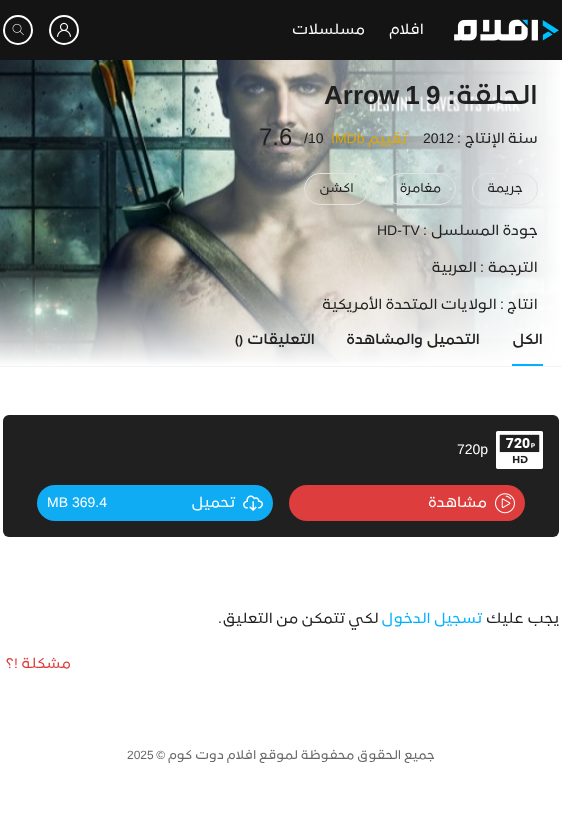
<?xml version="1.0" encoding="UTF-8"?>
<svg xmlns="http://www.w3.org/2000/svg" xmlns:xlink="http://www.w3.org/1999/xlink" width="562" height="813">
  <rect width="100%" height="100%" fill="#ffffff" />
  <rect width="562" height="60" fill="#141414" />
  <image x="454" y="19" width="105" height="22" xlink:href="image1.png" />
  <circle cx="64" cy="30" r="14" fill="none" stroke="#ffffff" stroke-width="2" />
  <image x="57" y="22" width="14" height="15" xlink:href="image2.png" />
  <circle cx="18" cy="30" r="14" fill="none" stroke="#ffffff" stroke-width="2" />
  <image x="12" y="23" width="12" height="13" xlink:href="image3.png" />
  <image x="0" y="60" width="562" height="306" xlink:href="image4.png" />
  <rect y="366" width="562" height="1" fill="#f4f3f3" />
  <rect x="472.5" y="173.5" width="65" height="31" rx="15.5" fill="none" stroke="#e2e2e2" />
  <rect x="385.5" y="173.5" width="70" height="31" rx="15.5" fill="none" stroke="#e2e2e2" />
  <rect x="304.5" y="173.5" width="64" height="31" rx="15.5" fill="none" stroke="#e2e2e2" />
  <rect x="512" y="364" width="31" height="2" fill="#00b1ff" />
  <rect x="3" y="415" width="556" height="122" rx="6" fill="#202020" />
  <image x="496" y="431" width="47" height="38" xlink:href="image5.png" />
  <rect x="289" y="485" width="236" height="36" rx="18" fill="#dd3e3d" />
  <image x="495" y="493" width="20" height="21" xlink:href="image6.png" />
  <rect x="37" y="485" width="236" height="36" rx="18" fill="#0facf3" />
  <image x="243" y="495" width="20" height="16" xlink:href="image7.png" />
  <text x="424" y="34" style="font-family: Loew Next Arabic; font-size: 14px; font-weight: 500; direction: rtl; fill: #ffffff">افلام</text>
  <text x="365" y="34" style="font-family: Loew Next Arabic; font-size: 14px; font-weight: 500; direction: rtl; fill: #ffffff">مسلسلات</text>
  <text x="538" y="104" style="font-family: Loew Next Arabic; font-size: 26px; font-weight: bold; direction: rtl; fill: #202020">الحلقة</text>
  <text x="456" y="104" style="font-family: Liberation Sans; font-size: 26px; font-weight: bold; direction: rtl; fill: #202020">:</text>
  <text x="426" y="104" style="font-family: Liberation Sans; font-size: 26px; font-weight: bold; fill: #202020">9</text>
  <text x="324" y="104" word-spacing="-1" style="font-family: Liberation Sans; font-size: 26px; font-weight: bold; fill: #202020">Arrow 1</text>
  <text x="538" y="143" style="font-family: Loew Next Arabic; font-size: 14px; font-weight: 500; direction: rtl; fill: #202020">سنة الإنتاج</text>
  <text x="461" y="143" style="font-family: Liberation Sans; font-size: 14px; direction: rtl; fill: #202020">:</text>
  <text x="423" y="143" style="font-family: Liberation Sans; font-size: 14px; fill: #202020">2012</text>
  <text x="407" y="143" style="font-family: Loew Next Arabic; font-size: 14px; font-weight: 500; direction: rtl; fill: #e0a902">تقييم</text>
  <text x="331" y="143" style="font-family: Liberation Sans; font-size: 14px; fill: #e0a902">IMDb</text>
  <text x="304" y="143" style="font-family: Liberation Sans; font-size: 14px; fill: #202020">/10</text>
  <text x="259" y="145" style="font-family: Liberation Sans; font-size: 24px; fill: #202020">7.6</text>
  <text x="523" y="192" style="font-family: Loew Next Arabic; font-size: 12px; font-weight: 500; direction: rtl; fill: #202020">جريمة</text>
  <text x="441" y="192" style="font-family: Loew Next Arabic; font-size: 12px; font-weight: 500; direction: rtl; fill: #202020">مغامرة</text>
  <text x="354" y="192" style="font-family: Loew Next Arabic; font-size: 12px; font-weight: 500; direction: rtl; fill: #202020">اكشن</text>
  <text x="538" y="235" style="font-family: Loew Next Arabic; font-size: 14px; font-weight: 500; direction: rtl; fill: #202020">جودة المسلسل</text>
  <text x="427" y="235" style="font-family: Liberation Sans; font-size: 14px; direction: rtl; fill: #202020">:</text>
  <text x="377" y="235" style="font-family: Liberation Sans; font-size: 14px; fill: #202020">HD-TV</text>
  <text x="538" y="272" style="font-family: Loew Next Arabic; font-size: 14px; font-weight: 500; direction: rtl; fill: #202020">الترجمة</text>
  <text x="484" y="272" style="font-family: Liberation Sans; font-size: 14px; direction: rtl; fill: #202020">:</text>
  <text x="477" y="272" style="font-family: Loew Next Arabic; font-size: 14px; font-weight: 500; direction: rtl; fill: #202020">العربية</text>
  <text x="538" y="309" style="font-family: Loew Next Arabic; font-size: 14px; font-weight: 500; direction: rtl; fill: #202020">انتاج</text>
  <text x="504" y="309" style="font-family: Liberation Sans; font-size: 14px; direction: rtl; fill: #202020">:</text>
  <text x="497" y="309" style="font-family: Loew Next Arabic; font-size: 14px; font-weight: 500; direction: rtl; fill: #202020">الولايات المتحدة الأمريكية</text>
  <text x="543" y="344" style="font-family: Loew Next Arabic; font-size: 14px; font-weight: bold; direction: rtl; fill: #202020">الكل</text>
  <text x="480" y="344" style="font-family: Loew Next Arabic; font-size: 14px; font-weight: bold; direction: rtl; fill: #202020">التحميل والمشاهدة</text>
  <text x="315" y="344" style="font-family: Loew Next Arabic; font-size: 14px; font-weight: bold; direction: rtl; fill: #202020">التعليقات</text>
  <text x="235" y="344" style="font-family: Liberation Sans; font-size: 12px; font-weight: bold; fill: #202020">()</text>
  <text x="457" y="454" style="font-family: Liberation Sans; font-size: 14px; fill: #ffffff">720p</text>
  <text x="487" y="507" style="font-family: Loew Next Arabic; font-size: 14px; font-weight: 500; direction: rtl; fill: #ffffff">مشاهدة</text>
  <text x="235" y="507" style="font-family: Loew Next Arabic; font-size: 14px; font-weight: 500; direction: rtl; fill: #ffffff">تحميل</text>
  <text x="72" y="507" style="font-family: Liberation Sans; font-size: 14px; fill: #ffffff">369.4</text>
  <text x="47" y="507" style="font-family: Liberation Sans; font-size: 14px; fill: #ffffff">MB</text>
  <text x="559" y="623" style="font-family: Loew Next Arabic; font-size: 14px; font-weight: 500; direction: rtl; fill: #202020">يجب عليك</text>
  <text x="482" y="623" style="font-family: Loew Next Arabic; font-size: 14px; font-weight: 500; direction: rtl; fill: #00b1ff">تسجيل الدخول</text>
  <text x="379" y="623" style="font-family: Loew Next Arabic; font-size: 14px; font-weight: 500; direction: rtl; fill: #202020">لكي تتمكن من</text>
  <text x="273" y="623" style="font-family: Loew Next Arabic; font-size: 14px; font-weight: 500; direction: rtl; fill: #202020">التعليق</text>
  <text x="222" y="623" style="font-family: Liberation Sans; font-size: 14px; direction: rtl; fill: #202020">.</text>
  <text x="71" y="668" style="font-family: Loew Next Arabic; font-size: 14px; font-weight: 500; direction: rtl; fill: #dd3e3d">مشكلة</text>
  <text x="18" y="668" style="font-family: Liberation Sans; font-size: 14px; direction: rtl; fill: #dd3e3d">!</text>
  <text x="14" y="668" style="font-family: Loew Next Arabic; font-size: 14px; font-weight: 500; direction: rtl; fill: #dd3e3d">؟</text>
  <text x="435" y="759" style="font-family: Loew Next Arabic; font-size: 12px; font-weight: 500; direction: rtl; fill: #666666">جميع الحقوق محفوظة لموقع افلام دوت كوم</text>
  <text x="165" y="759" style="font-family: Liberation Sans; font-size: 12px; direction: rtl; fill: #666666">©</text>
  <text x="127" y="759" style="font-family: Liberation Sans; font-size: 12px; fill: #666666">2025</text>
</svg>
